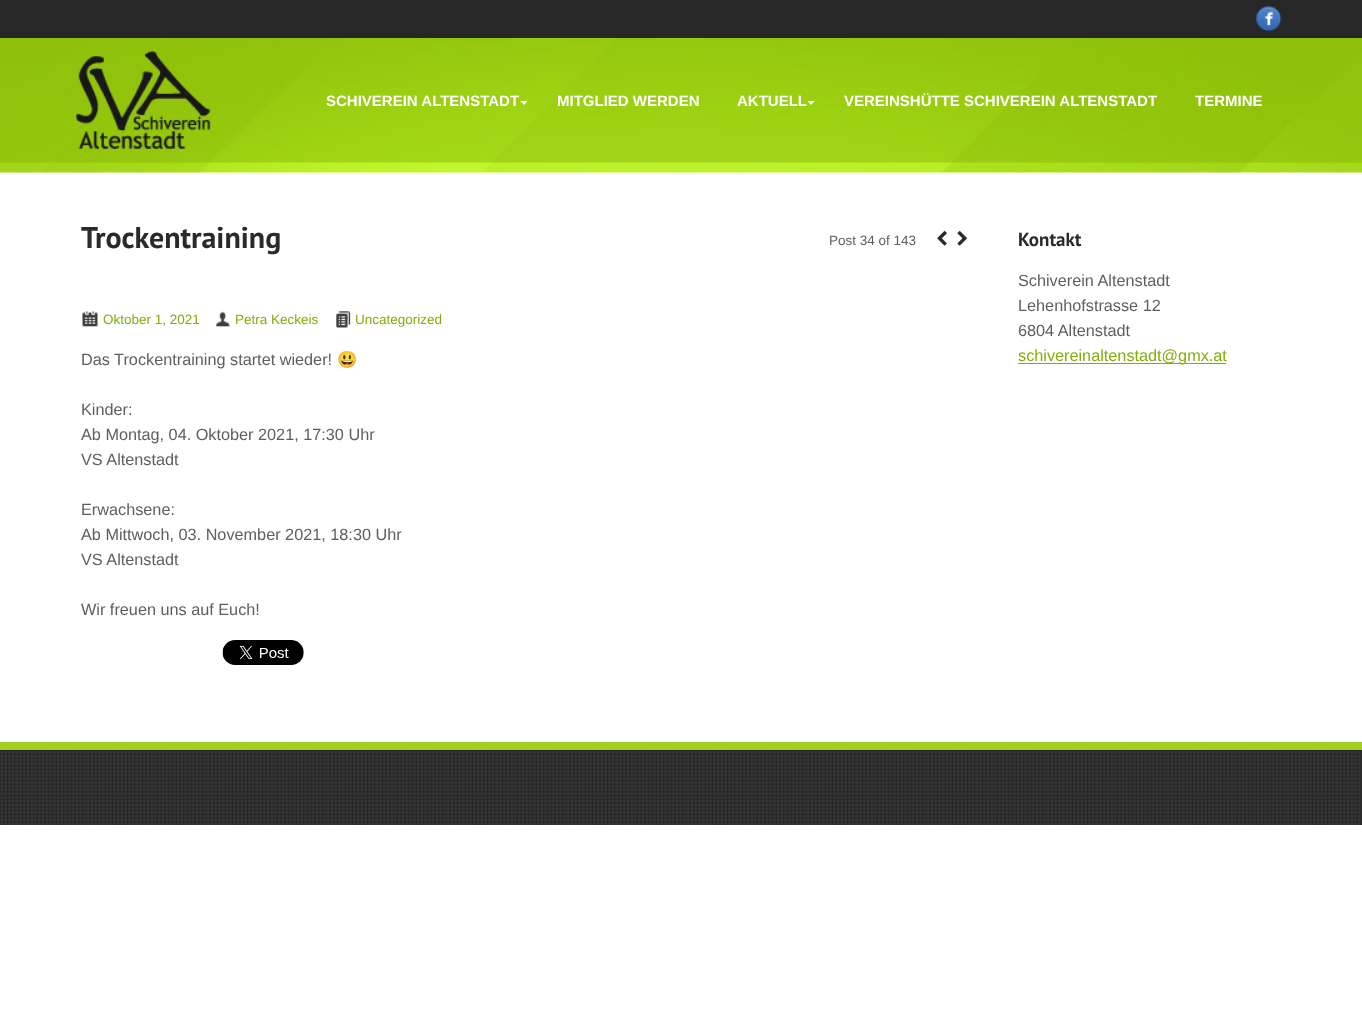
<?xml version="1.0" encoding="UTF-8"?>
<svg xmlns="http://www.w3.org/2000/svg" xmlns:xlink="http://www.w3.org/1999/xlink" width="1362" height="1017">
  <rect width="100%" height="100%" fill="#ffffff" />
  <image x="0" y="38" width="1362" height="135" xlink:href="image1.png" />
  <rect width="1362" height="38" fill="#272727" />
  <image x="1256" y="6" width="26" height="26" xlink:href="image2.png" />
  <image x="76" y="51" width="135" height="98" xlink:href="image3.png" />
  <path d="M 520 101 h 7.5 l -3.5 4 z" fill="#ffffff" />
  <path d="M 807.5 101 h 7.5 l -4 4 z" fill="#ffffff" />
  <image x="82" y="311" width="16" height="16" xlink:href="image4.png" />
  <image x="216" y="311" width="15" height="16" xlink:href="image5.png" />
  <image x="336" y="311" width="15" height="17" xlink:href="image6.png" />
  <image x="222" y="640" width="82" height="25" xlink:href="image7.png" />
  <rect x="1018" y="363" width="208" height="1" fill="#81ae08" />
  <rect y="742" width="1362" height="8" fill="#a0cf22" />
  <rect y="750" width="1362" height="75" fill="#272727" />
  <image x="0" y="751" width="1361" height="74" xlink:href="image8.png" />
  <text x="326" y="106" style="font-family: Liberation Sans; font-size: 15px; font-weight: bold; fill: #ffffff">SCHIVEREIN ALTENSTADT</text>
  <text x="557" y="106" style="font-family: Liberation Sans; font-size: 15px; font-weight: bold; fill: #ffffff">MITGLIED WERDEN</text>
  <text x="737" y="106" style="font-family: Liberation Sans; font-size: 15px; font-weight: bold; fill: #ffffff">AKTUELL</text>
  <text x="844" y="106" style="font-family: Liberation Sans; font-size: 15px; font-weight: bold; fill: #ffffff">VEREINSHÜTTE SCHIVEREIN ALTENSTADT</text>
  <text x="1195" y="106" style="font-family: Liberation Sans; font-size: 15px; font-weight: bold; fill: #ffffff">TERMINE</text>
  <text x="81" y="248" style="font-family: PT Sans; font-size: 30px; font-weight: bold; fill: #2a2a2a">Trockentraining</text>
  <text x="829" y="245" style="font-family: Liberation Sans; font-size: 13.5px; fill: #5e5e5e">Post 34 of 143</text>
  <text x="936" y="249" style="font-family: Advent Pro; font-size: 40px; font-weight: 600; fill: #2a2a2a">‹</text>
  <text x="956" y="249" style="font-family: Advent Pro; font-size: 40px; font-weight: 600; fill: #2a2a2a">›</text>
  <text x="103" y="324" style="font-family: Liberation Sans; font-size: 13.5px; fill: #81ae08">Oktober 1, 2021</text>
  <text x="235" y="324" style="font-family: Liberation Sans; font-size: 13.5px; fill: #81ae08">Petra Keckeis</text>
  <text x="355" y="324" style="font-family: Liberation Sans; font-size: 13.5px; fill: #81ae08">Uncategorized</text>
  <text x="81" y="365" style="font-family: Liberation Sans; font-size: 16.25px; fill: #5e5e5e">Das Trockentraining startet wieder!</text>
  <text x="337" y="365" style="font-family: Noto Color Emoji; font-size: 16.25px; fill: #5e5e5e">😃</text>
  <text x="81" y="415" style="font-family: Liberation Sans; font-size: 16.25px; fill: #5e5e5e">Kinder:</text>
  <text x="81" y="440" style="font-family: Liberation Sans; font-size: 16.25px; fill: #5e5e5e">Ab Montag, 04. Oktober 2021, 17:30 Uhr</text>
  <text x="81" y="465" style="font-family: Liberation Sans; font-size: 16.25px; fill: #5e5e5e">VS Altenstadt</text>
  <text x="81" y="515" style="font-family: Liberation Sans; font-size: 16.25px; fill: #5e5e5e">Erwachsene:</text>
  <text x="81" y="540" style="font-family: Liberation Sans; font-size: 16.25px; fill: #5e5e5e">Ab Mittwoch, 03. November 2021, 18:30 Uhr</text>
  <text x="81" y="565" style="font-family: Liberation Sans; font-size: 16.25px; fill: #5e5e5e">VS Altenstadt</text>
  <text x="81" y="615" style="font-family: Liberation Sans; font-size: 16.25px; fill: #5e5e5e">Wir freuen uns auf Euch!</text>
  <text x="1018" y="246" style="font-family: PT Sans; font-size: 19px; font-weight: bold; fill: #2a2a2a">Kontakt</text>
  <text x="1018" y="286" style="font-family: Liberation Sans; font-size: 16.25px; fill: #5e5e5e">Schiverein Altenstadt</text>
  <text x="1018" y="311" style="font-family: Liberation Sans; font-size: 16.25px; fill: #5e5e5e">Lehenhofstrasse 12</text>
  <text x="1018" y="336" style="font-family: Liberation Sans; font-size: 16.25px; fill: #5e5e5e">6804 Altenstadt</text>
  <text x="1018" y="361" style="font-family: Liberation Sans; font-size: 16.25px; fill: #81ae08">schivereinaltenstadt@gmx.at</text>
</svg>
